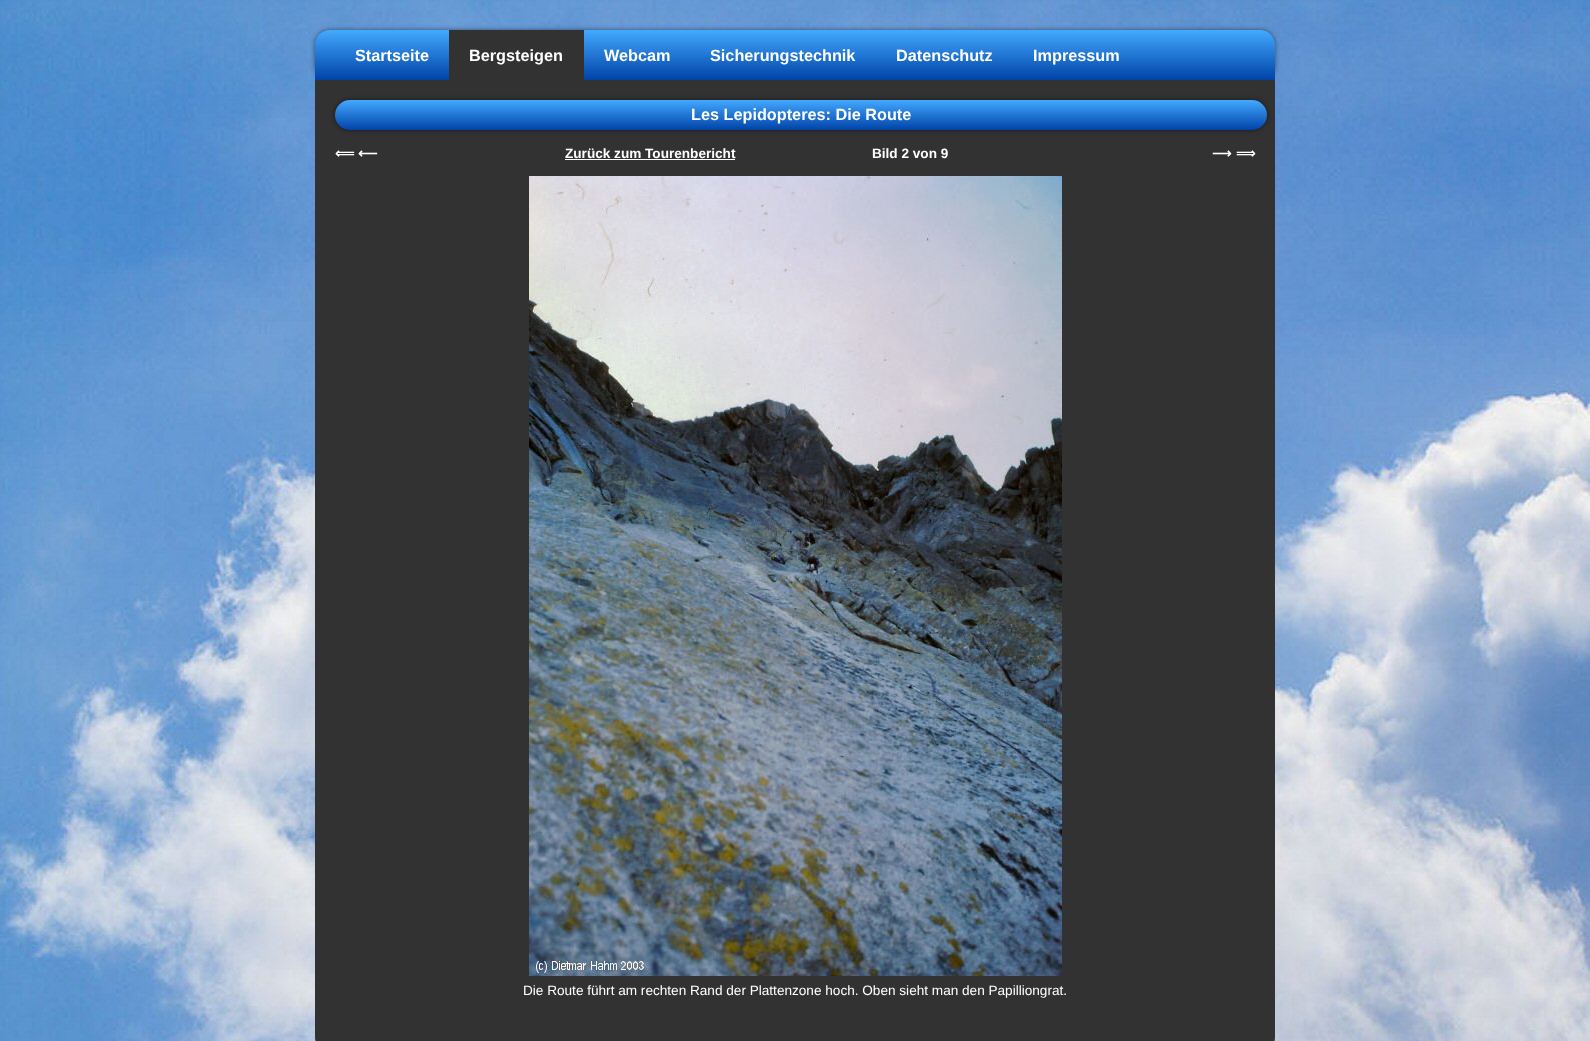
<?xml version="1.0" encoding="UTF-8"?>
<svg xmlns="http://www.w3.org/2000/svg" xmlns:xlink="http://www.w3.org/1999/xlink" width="1590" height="1041">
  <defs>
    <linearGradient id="g1" gradientUnits="userSpaceOnUse" x1="795" y1="30" x2="795" y2="80"><stop offset="0" stop-color="#43a9ff" /><stop offset="1" stop-color="#0043a8" /></linearGradient>
    <linearGradient id="g2" gradientUnits="userSpaceOnUse" x1="801" y1="100" x2="801" y2="130"><stop offset="0" stop-color="#43a9ff" /><stop offset="1" stop-color="#0043a8" /></linearGradient>
  </defs>
  <rect width="100%" height="100%" fill="#ffffff" />
  <image x="0" y="0" width="1590" height="1041" xlink:href="image1.png" />
  <rect x="315" y="30" width="960" height="50" rx="15" fill="#000000" fill-opacity="0.5" filter="blur(2.5px)" />
  <path d="M 330 30 h 930 c 8.5 0 15 6.5 15 15 v 35 h -960 v -35 c 0 -8.5 6.5 -15 15 -15 z" fill="url(#g1)" />
  <rect x="449" y="30" width="135" height="50" fill="#323232" />
  <path d="M 315 80 h 960 v 957 c 0 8.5 -6.5 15 -15 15 h -930 c -8.5 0 -15 -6.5 -15 -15 z" fill="#323232" />
  <rect x="335" y="100" width="932" height="30" rx="15" fill="#000000" fill-opacity="0.5" filter="blur(2.5px)" />
  <rect x="335" y="100" width="932" height="30" rx="15" fill="url(#g2)" />
  <rect x="565" y="159" width="170" height="1" fill="#ffffff" />
  <image x="529" y="176" width="533" height="800" xlink:href="image2.png" />
  <text x="355" y="61" style="font-family: Liberation Sans; font-size: 16.25px; font-weight: bold; fill: #ffffff">Startseite</text>
  <text x="469" y="61" style="font-family: Liberation Sans; font-size: 16.25px; font-weight: bold; fill: #ffffff">Bergsteigen</text>
  <text x="604" y="61" style="font-family: Liberation Sans; font-size: 16.25px; font-weight: bold; fill: #ffffff">Webcam</text>
  <text x="710" y="61" style="font-family: Liberation Sans; font-size: 16.25px; font-weight: bold; fill: #ffffff">Sicherungstechnik</text>
  <text x="896" y="61" style="font-family: Liberation Sans; font-size: 16.25px; font-weight: bold; fill: #ffffff">Datenschutz</text>
  <text x="1033" y="61" style="font-family: Liberation Sans; font-size: 16.25px; font-weight: bold; fill: #ffffff">Impressum</text>
  <text x="691" y="120" style="font-family: Liberation Sans; font-size: 16.25px; font-weight: bold; fill: #ffffff">Les Lepidopteres: Die Route</text>
  <text x="335" y="158" style="font-family: DejaVu Sans; font-size: 13.6px; font-weight: bold; fill: #ffffff">⟸</text>
  <text x="358" y="158" style="font-family: DejaVu Sans; font-size: 13.6px; font-weight: bold; fill: #ffffff">⟵</text>
  <text x="565" y="158" style="font-family: Liberation Sans; font-size: 13.6px; font-weight: bold; fill: #ffffff">Zurück zum Tourenbericht</text>
  <text x="872" y="158" style="font-family: Liberation Sans; font-size: 13.6px; font-weight: bold; fill: #ffffff">Bild 2 von 9</text>
  <text x="1212" y="158" style="font-family: DejaVu Sans; font-size: 13.6px; font-weight: bold; fill: #ffffff">⟶</text>
  <text x="1236" y="158" style="font-family: DejaVu Sans; font-size: 13.6px; font-weight: bold; fill: #ffffff">⟹</text>
  <text x="523" y="995" style="font-family: Liberation Sans; font-size: 13.6px; fill: #ffffff">Die Route führt am rechten Rand der Plattenzone hoch. Oben sieht man den Papilliongrat.</text>
</svg>
